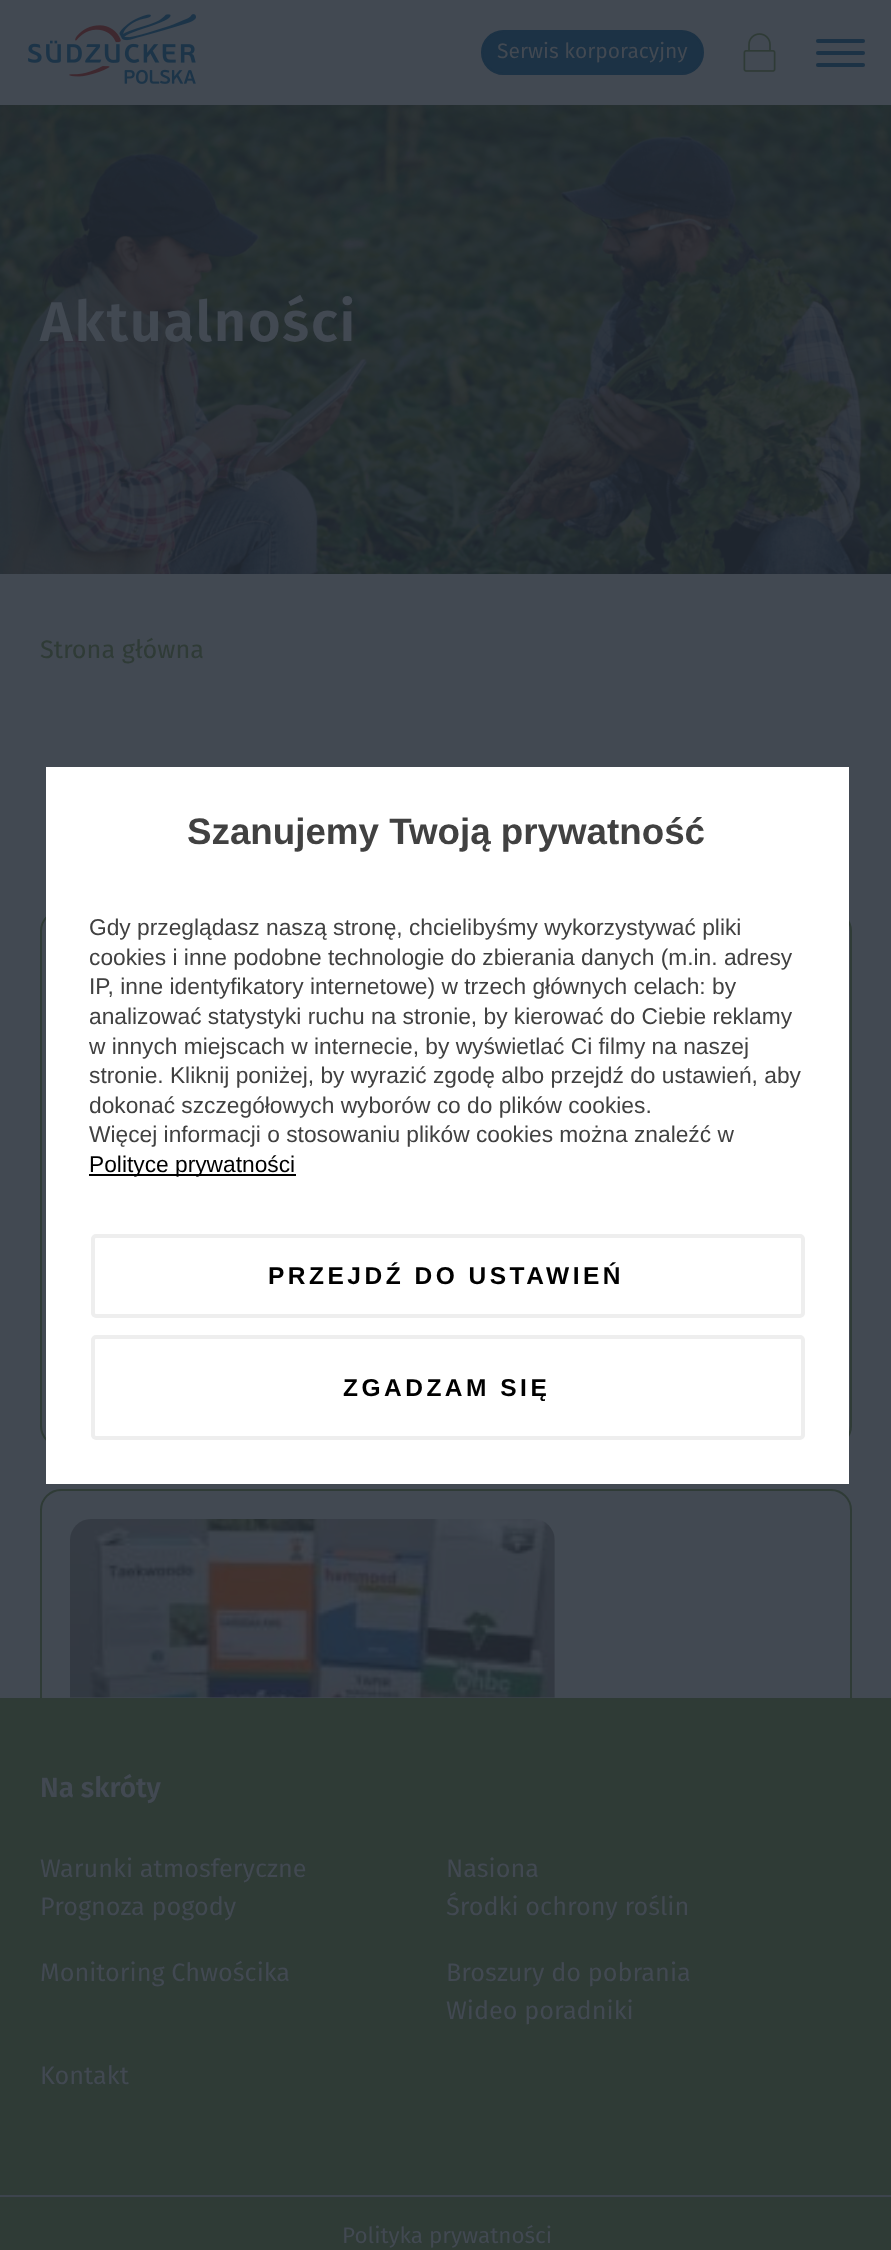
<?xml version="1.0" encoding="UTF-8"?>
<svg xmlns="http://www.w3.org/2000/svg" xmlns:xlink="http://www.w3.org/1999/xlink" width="891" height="2250">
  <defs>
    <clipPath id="clip1"><rect y="70" width="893" height="1628" /></clipPath>
  </defs>
  <rect width="100%" height="100%" fill="#424952" />
  <image x="28" y="14" width="168" height="70" xlink:href="image1.png" />
  <rect x="482" y="31" width="221" height="43" rx="21.5" fill="#1c3245" stroke="#1c3245" stroke-width="2" />
  <image x="743" y="33" width="33" height="39" xlink:href="image2.png" />
  <rect x="816" y="39" width="49" height="4" rx="2" fill="#1c3245" />
  <rect x="816" y="51" width="49" height="4" rx="2" fill="#1c3245" />
  <rect x="816" y="63" width="49" height="4" rx="2" fill="#1c3245" />
  <image x="0" y="105" width="891" height="469" xlink:href="image3.png" />
  <rect x="41" y="911" width="810" height="535" rx="20" fill="none" stroke="#2f3b36" stroke-width="2" />
  <rect x="46" y="767" width="803" height="717" fill="#ffffff" />
  <rect x="89" y="1174" width="207" height="2" fill="#000000" />
  <rect x="93" y="1236" width="710" height="80" rx="3" fill="none" stroke="#eeeeee" stroke-width="4" />
  <rect x="93" y="1337" width="710" height="101" rx="3" fill="none" stroke="#eeeeee" stroke-width="4" />
  <rect y="1698" width="891" height="552" fill="#2f3b36" />
  <rect y="2195" width="891" height="2" fill="#3d444d" />
  <text x="497" y="58" style="font-family: Fira Sans; font-size: 21px; fill: #424952">Serwis korporacyjny</text>
  <text x="40" y="341" style="font-family: Fira Sans; font-size: 56px; font-weight: 600; letter-spacing: 1.75px; fill: #424952">Aktualności</text>
  <text x="40" y="658" style="font-family: Fira Sans; font-size: 25.25px; fill: #2f3b36">Strona główna</text>
  <text x="187" y="844" style="font-family: Liberation Sans; font-size: 36.75px; font-weight: bold; fill: #414141">Szanujemy Twoją prywatność</text>
  <text x="89" y="935" style="font-family: Liberation Sans; font-size: 22.75px; fill: #414141">Gdy przeglądasz naszą stronę, chcielibyśmy wykorzystywać pliki</text>
  <text x="89" y="965" style="font-family: Liberation Sans; font-size: 22.75px; fill: #414141">cookies i inne podobne technologie do zbierania danych (m.in. adresy</text>
  <text x="89" y="994" style="font-family: Liberation Sans; font-size: 22.75px; fill: #414141">IP, inne identyfikatory internetowe) w trzech głównych celach: by</text>
  <text x="89" y="1024" style="font-family: Liberation Sans; font-size: 22.75px; fill: #414141">analizować statystyki ruchu na stronie, by kierować do Ciebie reklamy</text>
  <text x="89" y="1054" style="font-family: Liberation Sans; font-size: 22.75px; fill: #414141">w innych miejscach w internecie, by wyświetlać Ci filmy na naszej</text>
  <text x="89" y="1083" style="font-family: Liberation Sans; font-size: 22.75px; fill: #414141">stronie. Kliknij poniżej, by wyrazić zgodę albo przejdź do ustawień, aby</text>
  <text x="89" y="1113" style="font-family: Liberation Sans; font-size: 22.75px; fill: #414141">dokonać szczegółowych wyborów co do plików cookies.</text>
  <text x="89" y="1142" style="font-family: Liberation Sans; font-size: 22.75px; fill: #414141">Więcej informacji o stosowaniu plików cookies można znaleźć w</text>
  <text x="89" y="1172" style="font-family: Liberation Sans; font-size: 22.75px; fill: #000000">Polityce prywatności</text>
  <text x="268" y="1284" style="font-family: Liberation Sans; font-size: 24.5px; font-weight: bold; letter-spacing: 3.5px; fill: #000000">PRZEJDŹ DO USTAWIEŃ</text>
  <text x="343" y="1396" style="font-family: Liberation Sans; font-size: 24.5px; font-weight: bold; letter-spacing: 3.5px; fill: #000000">ZGADZAM SIĘ</text>
  <text x="40" y="1797" style="font-family: Fira Sans; font-size: 28px; font-weight: 600; fill: #424952">Na skróty</text>
  <text x="40" y="1877" style="font-family: Fira Sans; font-size: 25.25px; fill: #424952">Warunki atmosferyczne</text>
  <text x="40" y="1915" style="font-family: Fira Sans; font-size: 25.25px; fill: #424952">Prognoza pogody</text>
  <text x="446" y="1877" style="font-family: Fira Sans; font-size: 25.25px; fill: #424952">Nasiona</text>
  <text x="446" y="1915" style="font-family: Fira Sans; font-size: 25.25px; fill: #424952">Środki ochrony roślin</text>
  <text x="40" y="1981" style="font-family: Fira Sans; font-size: 25.25px; fill: #424952">Monitoring Chwościka</text>
  <g clip-path="url(#clip1)">
    <rect x="41" y="1490" width="810" height="536" rx="20" fill="none" stroke="#2f3b36" stroke-width="2" />
  </g>
  <image x="70" y="1519" width="485" height="179" xlink:href="image4.png" />
  <text x="446" y="1981" style="font-family: Fira Sans; font-size: 25.25px; fill: #424952">Broszury do pobrania</text>
  <text x="446" y="2019" style="font-family: Fira Sans; font-size: 25.25px; fill: #424952">Wideo poradniki</text>
  <text x="40" y="2084" style="font-family: Fira Sans; font-size: 25.25px; fill: #424952">Kontakt</text>
  <text x="342" y="2243" style="font-family: Fira Sans; font-size: 22.5px; fill: #424952">Polityka prywatności</text>
</svg>
